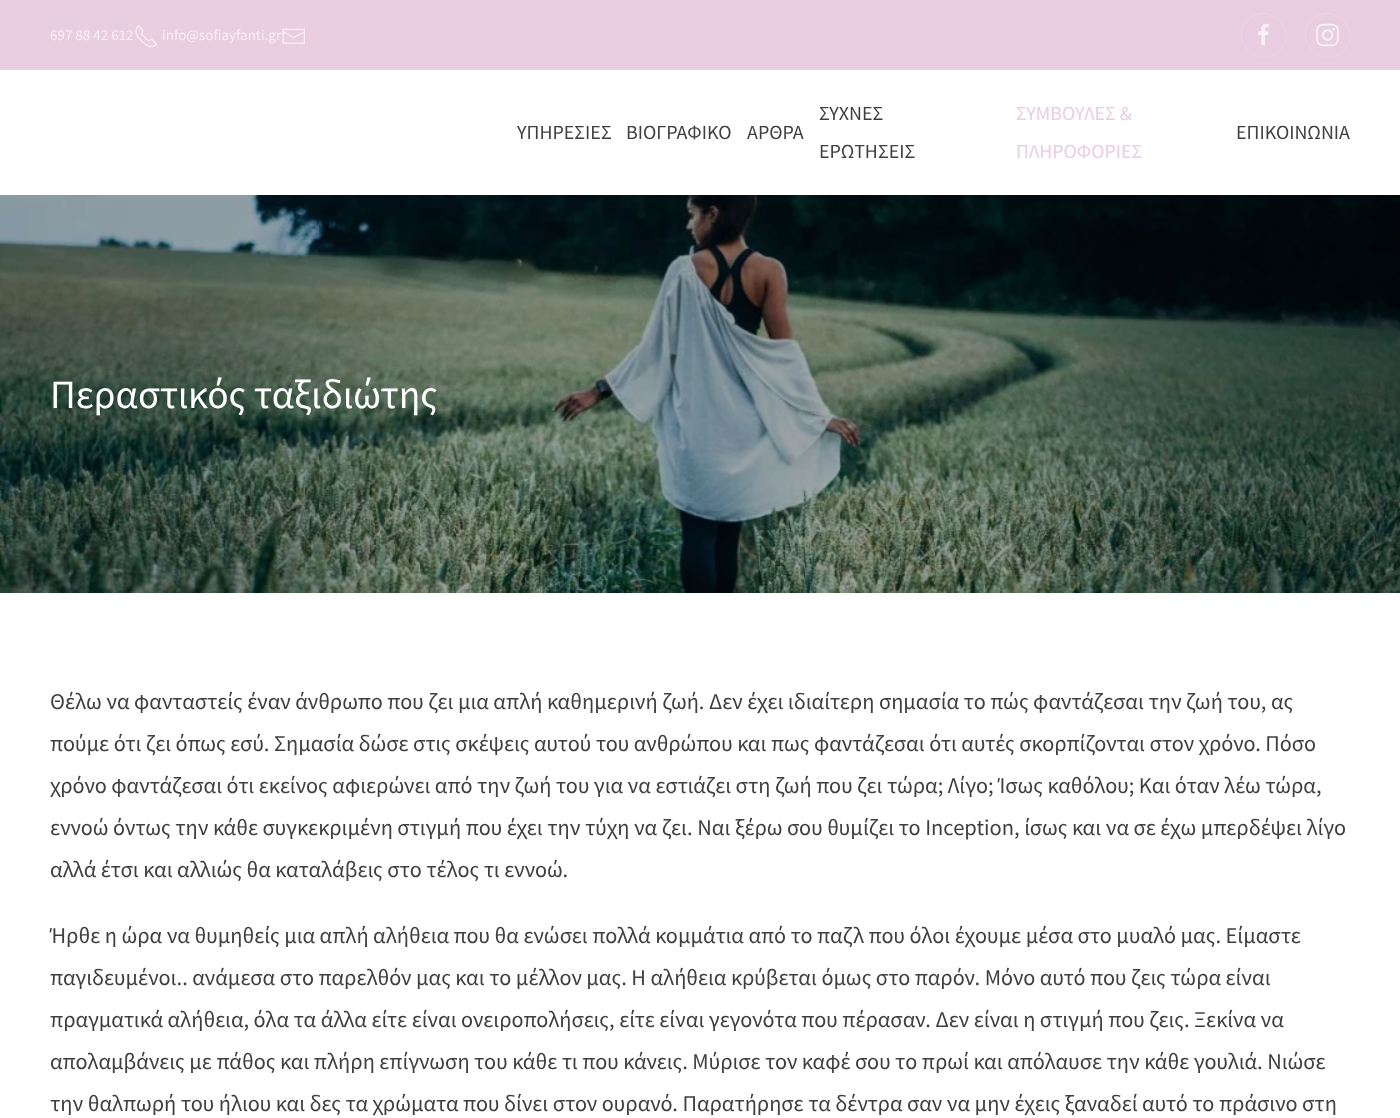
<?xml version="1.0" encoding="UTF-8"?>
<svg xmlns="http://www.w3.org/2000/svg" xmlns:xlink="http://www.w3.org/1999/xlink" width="1400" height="1118">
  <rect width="100%" height="100%" fill="#ffffff" />
  <rect width="1400" height="70" fill="#e9cde1" />
  <image x="135" y="25" width="22" height="23" xlink:href="image1.png" />
  <image x="282" y="28" width="23" height="16" xlink:href="image2.png" />
  <circle cx="1263.5" cy="35.5" r="22" fill="none" stroke="#edd7e7" />
  <image x="1258" y="23" width="11" height="22" xlink:href="image3.png" />
  <circle cx="1327.5" cy="35.5" r="22" fill="none" stroke="#edd7e7" />
  <image x="1316" y="23" width="23" height="24" xlink:href="image4.png" />
  <image x="0" y="195" width="1400" height="398" xlink:href="image5.png" />
  <text x="50" y="40" style="font-family: Source Sans Pro; font-size: 15px; fill: #f8f0f6">697 88 42 612</text>
  <text x="162" y="40" style="font-family: Source Sans Pro; font-size: 15px; fill: #f8f0f6">info@sofiayfanti.gr</text>
  <text x="517" y="139" style="font-family: Source Sans Pro; font-size: 20px; fill: #3f3f3f">ΥΠΗΡΕΣΙΕΣ</text>
  <text x="626" y="139" style="font-family: Source Sans Pro; font-size: 20px; fill: #3f3f3f">ΒΙΟΓΡΑΦΙΚΟ</text>
  <text x="747" y="139" style="font-family: Source Sans Pro; font-size: 20px; fill: #3f3f3f">ΑΡΘΡΑ</text>
  <text x="819" y="120" style="font-family: Source Sans Pro; font-size: 20px; fill: #3f3f3f">ΣΥΧΝΕΣ</text>
  <text x="819" y="158" style="font-family: Source Sans Pro; font-size: 20px; fill: #3f3f3f">ΕΡΩΤΗΣΕΙΣ</text>
  <text x="1016" y="120" style="font-family: Source Sans Pro; font-size: 20px; fill: #e9cde1">ΣΥΜΒΟΥΛΕΣ &amp;</text>
  <text x="1016" y="158" style="font-family: Source Sans Pro; font-size: 20px; fill: #e9cde1">ΠΛΗΡΟΦΟΡΙΕΣ</text>
  <text x="1236" y="139" style="font-family: Source Sans Pro; font-size: 20px; fill: #3f3f3f">ΕΠΙΚΟΙΝΩΝΙΑ</text>
  <text x="50" y="408" style="font-family: Source Sans Pro; font-size: 40px; fill: #ffffff">Περαστικός ταξιδιώτης</text>
  <text x="50" y="709" style="font-family: Source Sans Pro; font-size: 22.5px; fill: #3f3f3f">Θέλω να φανταστείς έναν άνθρωπο που ζει μια απλή καθημερινή ζωή. Δεν έχει ιδιαίτερη σημασία το πώς φαντάζεσαι την ζωή του, ας</text>
  <text x="50" y="751" style="font-family: Source Sans Pro; font-size: 22.5px; fill: #3f3f3f">πούμε ότι ζει όπως εσύ. Σημασία δώσε στις σκέψεις αυτού του ανθρώπου και πως φαντάζεσαι ότι αυτές σκορπίζονται στον χρόνο. Πόσο</text>
  <text x="50" y="793" style="font-family: Source Sans Pro; font-size: 22.5px; fill: #3f3f3f">χρόνο φαντάζεσαι ότι εκείνος αφιερώνει από την ζωή του για να εστιάζει στη ζωή που ζει τώρα; Λίγο; Ίσως καθόλου; Και όταν λέω τώρα,</text>
  <text x="50" y="835" style="font-family: Source Sans Pro; font-size: 22.5px; fill: #3f3f3f">εννοώ όντως την κάθε συγκεκριμένη στιγμή που έχει την τύχη να ζει. Ναι ξέρω σου θυμίζει το Inception, ίσως και να σε έχω μπερδέψει λίγο</text>
  <text x="50" y="877" style="font-family: Source Sans Pro; font-size: 22.5px; fill: #3f3f3f">αλλά έτσι και αλλιώς θα καταλάβεις στο τέλος τι εννοώ.</text>
  <text x="50" y="943" style="font-family: Source Sans Pro; font-size: 22.5px; fill: #3f3f3f">Ήρθε η ώρα να θυμηθείς μια απλή αλήθεια που θα ενώσει πολλά κομμάτια από το παζλ που όλοι έχουμε μέσα στο μυαλό μας. Είμαστε</text>
  <text x="50" y="985" style="font-family: Source Sans Pro; font-size: 22.5px; fill: #3f3f3f">παγιδευμένοι.. ανάμεσα στο παρελθόν μας και το μέλλον μας. Η αλήθεια κρύβεται όμως στο παρόν. Μόνο αυτό που ζεις τώρα είναι</text>
  <text x="50" y="1027" style="font-family: Source Sans Pro; font-size: 22.5px; fill: #3f3f3f">πραγματικά αλήθεια, όλα τα άλλα είτε είναι ονειροπολήσεις, είτε είναι γεγονότα που πέρασαν. Δεν είναι η στιγμή που ζεις. Ξεκίνα να</text>
  <text x="50" y="1069" style="font-family: Source Sans Pro; font-size: 22.5px; fill: #3f3f3f">απολαμβάνεις με πάθος και πλήρη επίγνωση του κάθε τι που κάνεις. Μύρισε τον καφέ σου το πρωί και απόλαυσε την κάθε γουλιά. Νιώσε</text>
  <text x="50" y="1111" style="font-family: Source Sans Pro; font-size: 22.5px; fill: #3f3f3f">την θαλπωρή του ήλιου και δες τα χρώματα που δίνει στον ουρανό. Παρατήρησε τα δέντρα σαν να μην έχεις ξαναδεί αυτό το πράσινο στη</text>
</svg>
